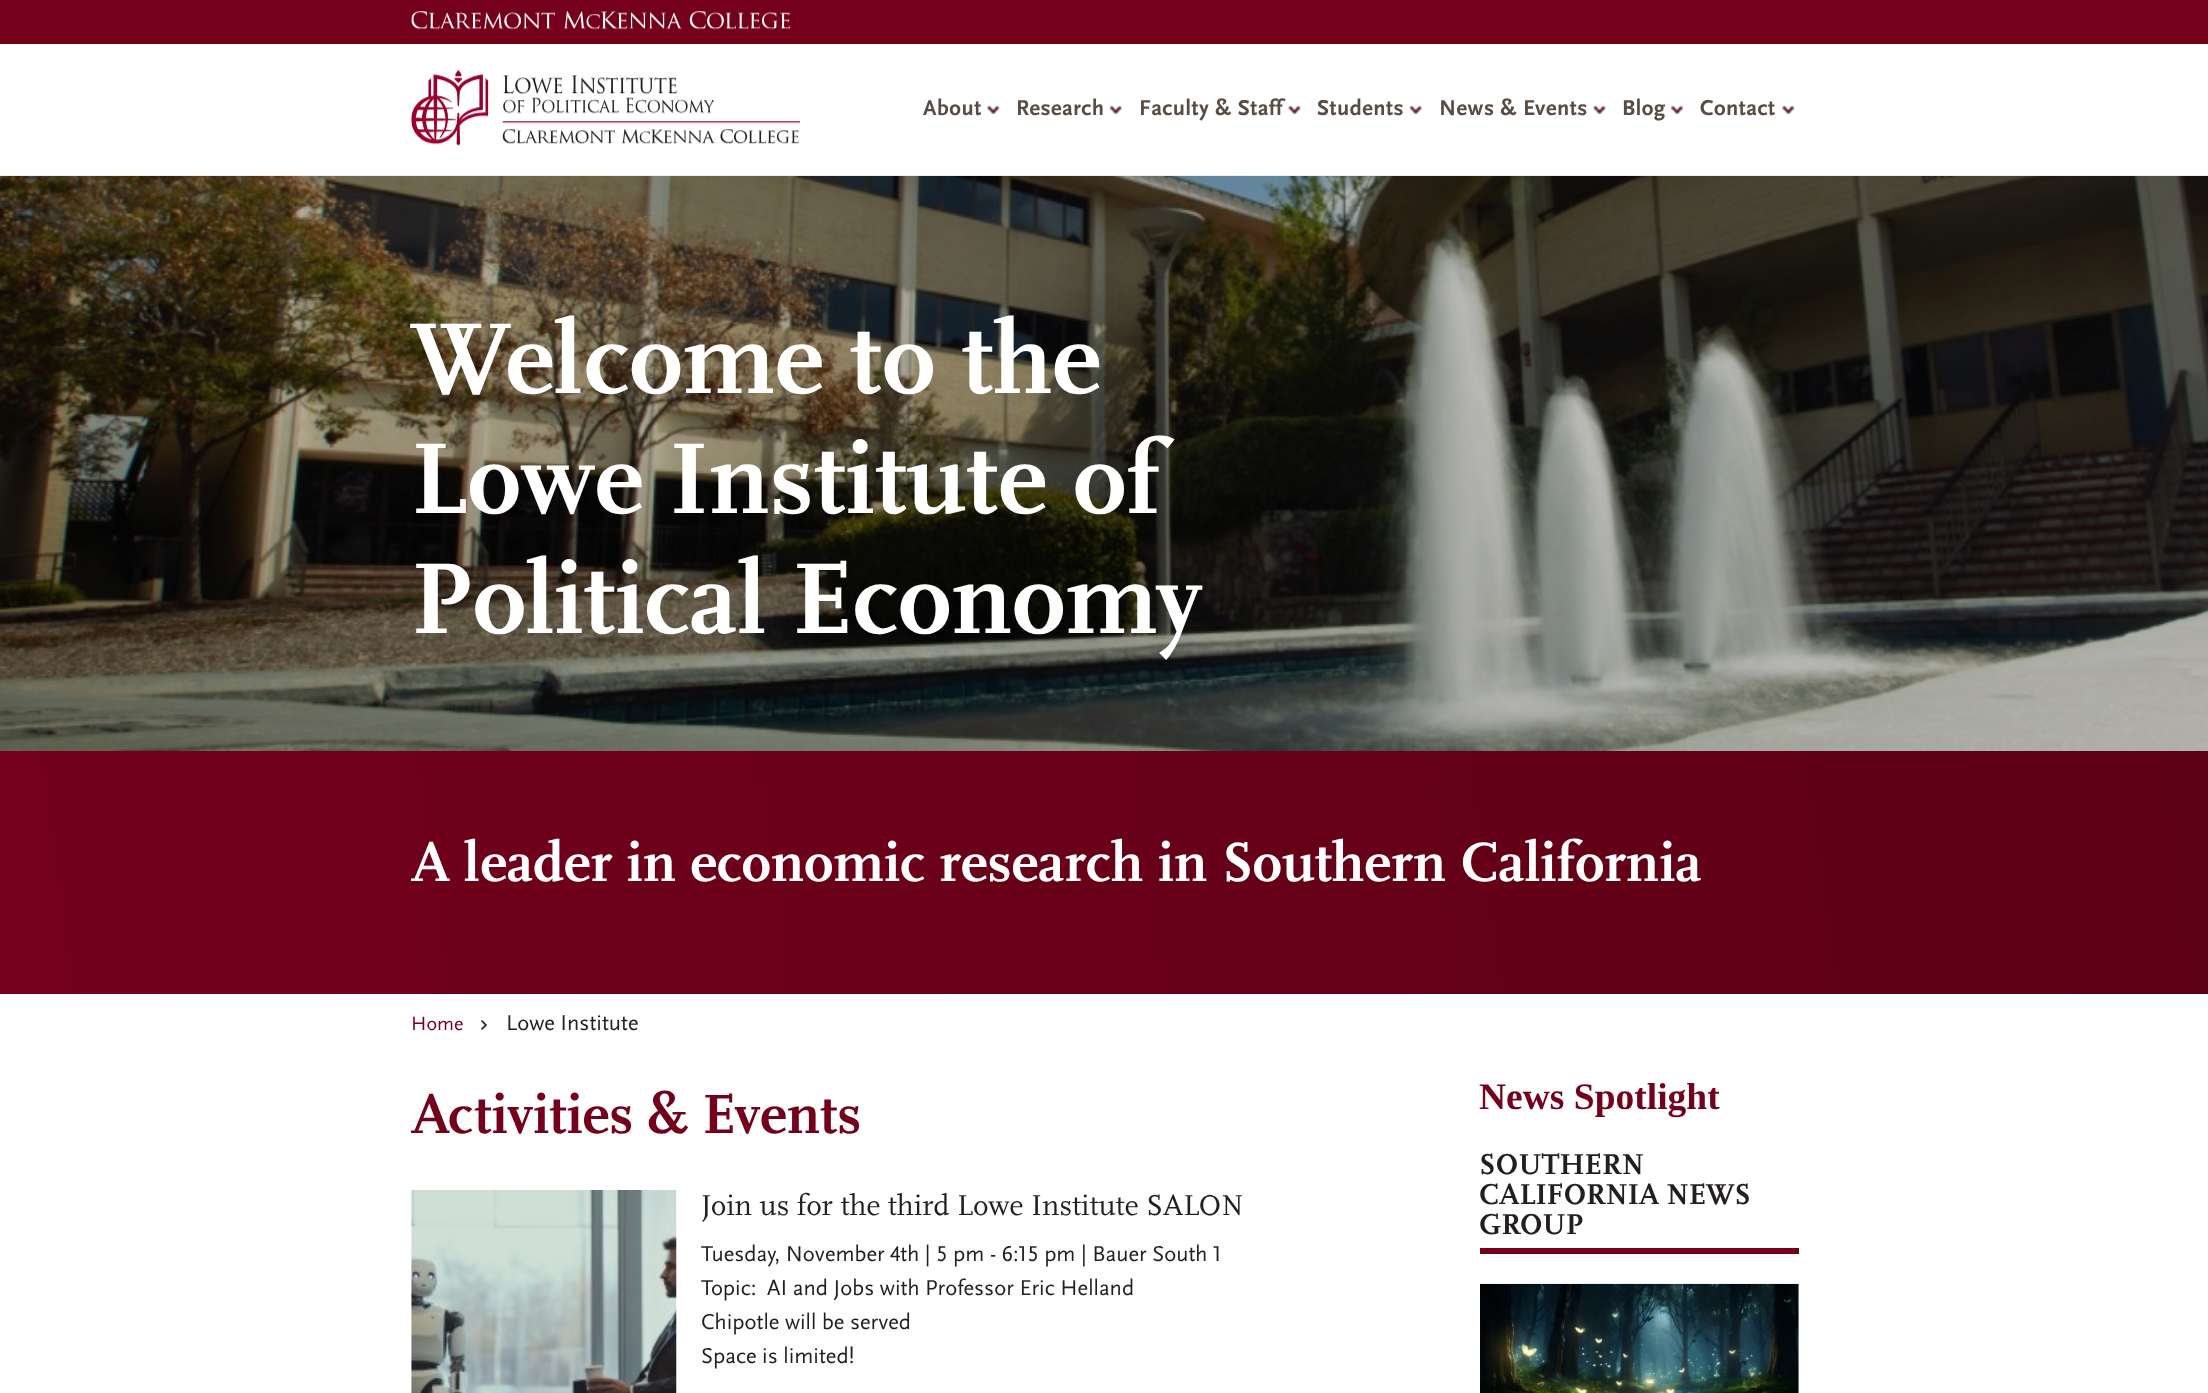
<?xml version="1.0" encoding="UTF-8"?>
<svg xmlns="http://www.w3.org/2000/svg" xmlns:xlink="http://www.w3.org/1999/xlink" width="2208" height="1393">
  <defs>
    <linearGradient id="g1" gradientUnits="userSpaceOnUse" x1="4.5" y1="1026" x2="2204" y2="719"><stop offset="0" stop-color="#74001c" /><stop offset="1" stop-color="#5c0016" /></linearGradient>
  </defs>
  <rect width="100%" height="100%" fill="#ffffff" />
  <rect y="175" width="2208" height="1" fill="#eeeeee" />
  <rect width="2208" height="44" fill="#74001c" />
  <image x="411" y="11" width="379" height="19" xlink:href="image1.png" />
  <image x="411" y="70" width="389" height="76" xlink:href="image2.png" />
  <image x="987" y="106" width="13" height="8" xlink:href="image3.png" />
  <image x="1109" y="106" width="14" height="8" xlink:href="image4.png" />
  <image x="1288" y="106" width="13" height="8" xlink:href="image5.png" />
  <image x="1409" y="106" width="14" height="8" xlink:href="image4.png" />
  <image x="1593" y="106" width="13" height="8" xlink:href="image5.png" />
  <image x="1671" y="106" width="13" height="8" xlink:href="image6.png" />
  <image x="1782" y="106" width="13" height="8" xlink:href="image3.png" />
  <image x="0" y="176" width="2208" height="575" xlink:href="image7.png" />
  <rect y="751" width="2208" height="243" fill="url(#g1)" />
  <image x="481" y="1020" width="6" height="10" xlink:href="image8.png" />
  <image x="411" y="1190" width="266" height="203" xlink:href="image9.png" />
  <rect x="1480" y="1248" width="319" height="6" fill="#74001c" />
  <image x="1480" y="1283" width="319" height="110" xlink:href="image10.png" />
  <text x="923" y="115" style="font-family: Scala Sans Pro; font-size: 22.5px; font-weight: bold; letter-spacing: 0.5px; fill: #5a4b43">About</text>
  <text x="1016" y="115" style="font-family: Scala Sans Pro; font-size: 22.5px; font-weight: bold; letter-spacing: 0.5px; fill: #5a4b43">Research</text>
  <text x="1139" y="115" style="font-family: Scala Sans Pro; font-size: 22.5px; font-weight: bold; letter-spacing: 0.5px; fill: #5a4b43">Faculty &amp; Staff</text>
  <text x="1317" y="115" style="font-family: Scala Sans Pro; font-size: 22.5px; font-weight: bold; letter-spacing: 0.5px; fill: #5a4b43">Students</text>
  <text x="1439" y="115" style="font-family: Scala Sans Pro; font-size: 22.5px; font-weight: bold; letter-spacing: 0.5px; fill: #5a4b43">News &amp; Events</text>
  <text x="1622" y="115" style="font-family: Scala Sans Pro; font-size: 22.5px; font-weight: bold; letter-spacing: 0.5px; fill: #5a4b43">Blog</text>
  <text x="1700" y="115" style="font-family: Scala Sans Pro; font-size: 22.5px; font-weight: bold; letter-spacing: 0.5px; fill: #5a4b43">Contact</text>
  <text x="411" y="393" style="font-family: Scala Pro; font-size: 105px; font-weight: bold; fill: #ffffff">Welcome to the</text>
  <text x="411" y="513" style="font-family: Scala Pro; font-size: 105px; font-weight: bold; fill: #ffffff">Lowe Institute of</text>
  <text x="411" y="633" style="font-family: Scala Pro; font-size: 105px; font-weight: bold; fill: #ffffff">Political Economy</text>
  <text x="411" y="881" style="font-family: Scala Pro; font-size: 57.5px; font-weight: bold; fill: #ffffff">A leader in economic research in Southern California</text>
  <text x="411" y="1030" style="font-family: Scala Sans Pro; font-size: 20px; fill: #74001c">Home</text>
  <text x="506" y="1030" style="font-family: Scala Sans Pro; font-size: 22.5px; fill: #231f20">Lowe Institute</text>
  <text x="411" y="1133" style="font-family: Scala Pro; font-size: 57.5px; font-weight: bold; fill: #74001c">Activities &amp; Events</text>
  <text x="701" y="1215" style="font-family: Scala Pro; font-size: 30px; fill: #231f20">Join us for the third Lowe Institute SALON</text>
  <text x="701" y="1261" style="font-family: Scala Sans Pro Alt; font-size: 22.5px; fill: #231f20">Tuesday, November 4th | 5 pm - 6:15 pm | Bauer South 1</text>
  <text x="701" y="1295" style="font-family: Scala Sans Pro; font-size: 22.5px; fill: #231f20" xml:space="preserve">Topic:  AI and Jobs with Professor Eric Helland</text>
  <text x="701" y="1329" style="font-family: Scala Sans Pro; font-size: 22.5px; fill: #231f20">Chipotle will be served</text>
  <text x="701" y="1363" style="font-family: Scala Sans Pro; font-size: 22.5px; fill: #231f20">Space is limited!</text>
  <text x="1479" y="1109" style="font-family: Liberation Serif; font-size: 37.5px; font-weight: bold; fill: #74001c">News Spotlight</text>
  <text x="1479" y="1174" style="font-family: Scala Pro; font-size: 30px; font-weight: bold; fill: #231f20">SOUTHERN</text>
  <text x="1479" y="1204" style="font-family: Scala Pro; font-size: 30px; font-weight: bold; fill: #231f20">CALIFORNIA NEWS</text>
  <text x="1479" y="1234" style="font-family: Scala Pro; font-size: 30px; font-weight: bold; fill: #231f20">GROUP</text>
</svg>
